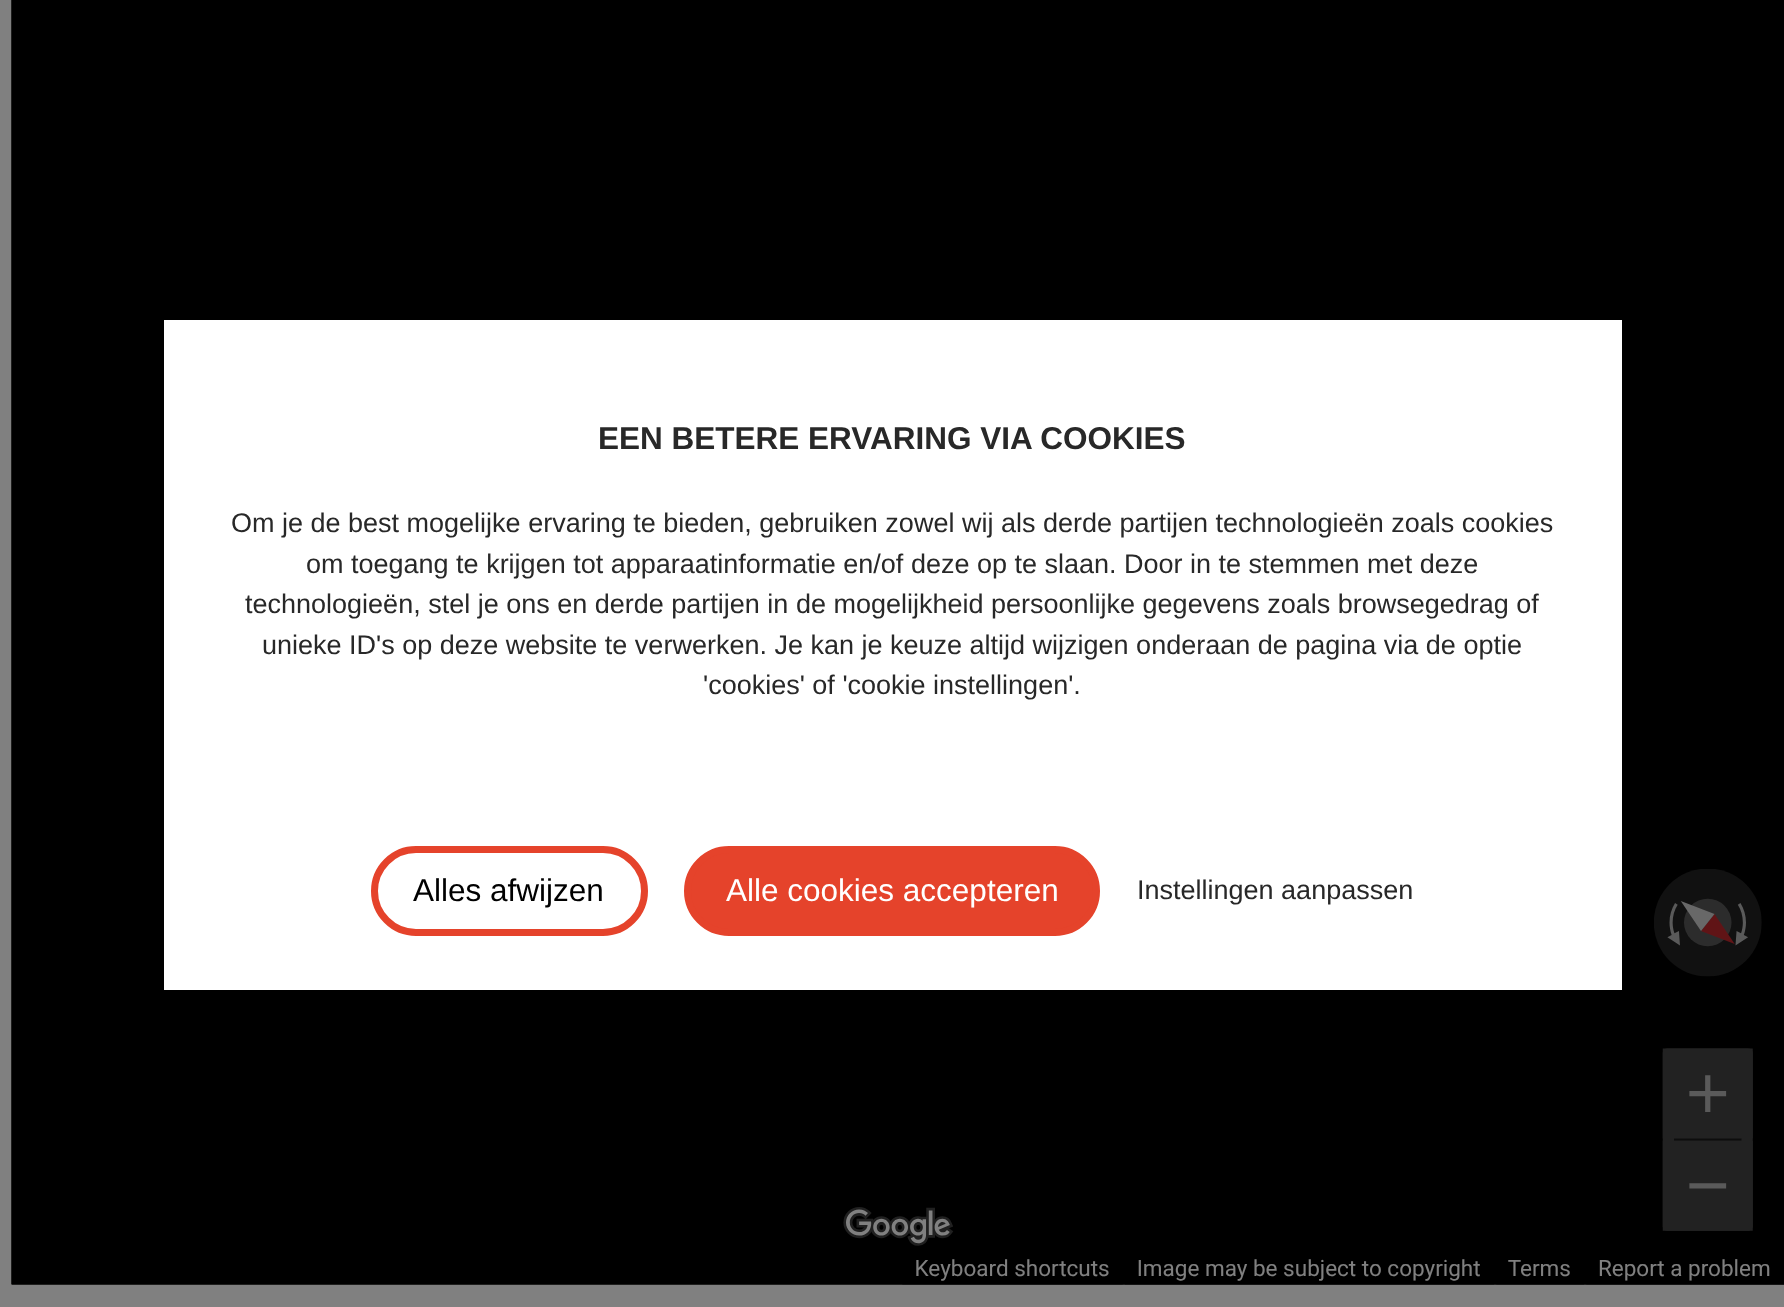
<?xml version="1.0" encoding="UTF-8"?>
<svg xmlns="http://www.w3.org/2000/svg" xmlns:xlink="http://www.w3.org/1999/xlink" width="1784" height="1307">
  <rect width="100%" height="100%" fill="#808080" />
  <image x="11" y="0" width="1773" height="1285" xlink:href="image1.png" />
  <rect x="164" y="320" width="1458" height="670" fill="#ffffff" />
  <rect x="374.5" y="849.5" width="270" height="83" rx="41.5" fill="none" stroke="#e5432b" stroke-width="7" />
  <rect x="687.5" y="849.5" width="409" height="83" rx="41.5" fill="#e5432b" stroke="#e5432b" stroke-width="7" />
  <text x="598" y="449" style="font-family: Liberation Sans; font-size: 31.5px; font-weight: bold; fill: #282828">EEN BETERE ERVARING VIA COOKIES</text>
  <text x="231" y="532" style="font-family: Liberation Sans; font-size: 27px; fill: #282828">Om je de best mogelijke ervaring te bieden, gebruiken zowel wij als derde partijen technologieën zoals cookies</text>
  <text x="306" y="573" style="font-family: Liberation Sans; font-size: 27px; fill: #282828">om toegang te krijgen tot apparaatinformatie en/of deze op te slaan. Door in te stemmen met deze</text>
  <text x="245" y="613" style="font-family: Liberation Sans; font-size: 27px; fill: #282828">technologieën, stel je ons en derde partijen in de mogelijkheid persoonlijke gegevens zoals browsegedrag of</text>
  <text x="262" y="654" style="font-family: Liberation Sans; font-size: 27px; fill: #282828">unieke ID's op deze website te verwerken. Je kan je keuze altijd wijzigen onderaan de pagina via de optie</text>
  <text x="703" y="694" style="font-family: Liberation Sans; font-size: 27px; fill: #282828">'cookies' of 'cookie instellingen'.</text>
  <text x="413" y="901" style="font-family: Liberation Sans; font-size: 31.5px; fill: #000000">Alles afwijzen</text>
  <text x="726" y="901" style="font-family: Liberation Sans; font-size: 31.5px; fill: #ffffff">Alle cookies accepteren</text>
  <text x="1137" y="899" style="font-family: Liberation Sans; font-size: 27px; fill: #282828">Instellingen aanpassen</text>
</svg>
